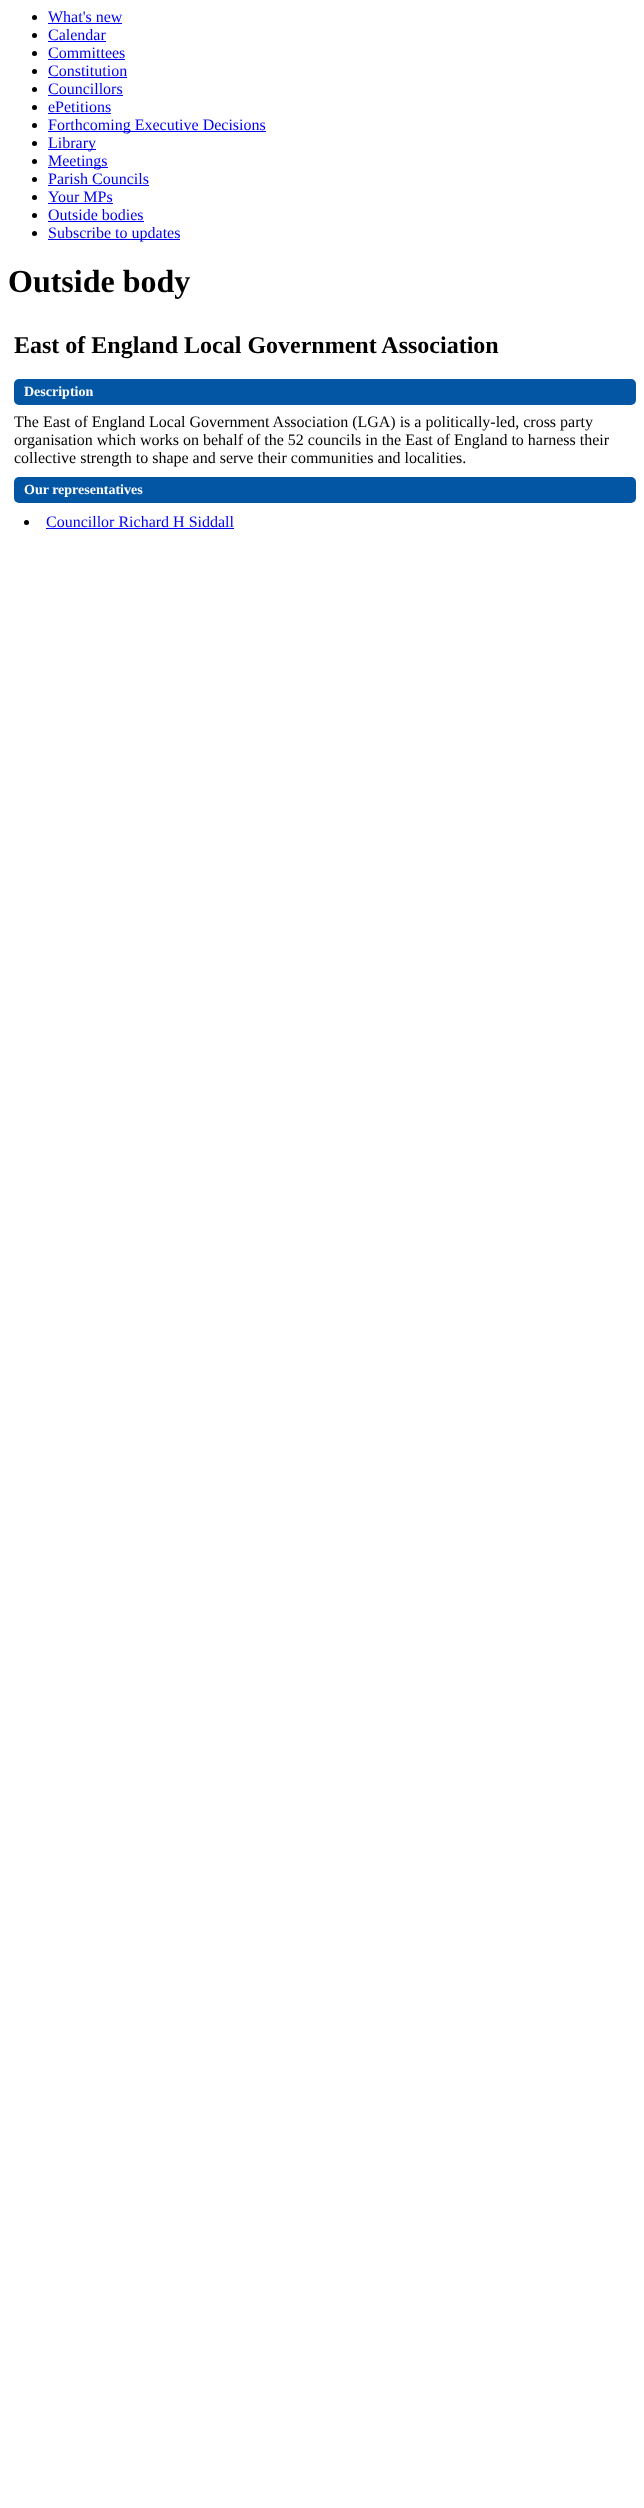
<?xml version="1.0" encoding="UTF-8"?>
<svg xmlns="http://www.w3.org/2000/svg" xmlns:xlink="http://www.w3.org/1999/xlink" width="644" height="2508">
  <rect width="100%" height="100%" fill="#ffffff" />
  <circle cx="34.5" cy="17.5" r="2.5" fill="#000000" />
  <rect x="48" y="23" width="74" height="1" fill="#0000ee" />
  <circle cx="34.5" cy="35.5" r="2.5" fill="#000000" />
  <rect x="48" y="41" width="58" height="1" fill="#0000ee" />
  <circle cx="34.5" cy="53.5" r="2.5" fill="#000000" />
  <rect x="48" y="59" width="77" height="1" fill="#0000ee" />
  <circle cx="34.5" cy="71.5" r="2.5" fill="#000000" />
  <rect x="48" y="77" width="79" height="1" fill="#0000ee" />
  <circle cx="34.5" cy="89.5" r="2.5" fill="#000000" />
  <rect x="48" y="95" width="75" height="1" fill="#0000ee" />
  <circle cx="34.5" cy="107.5" r="2.5" fill="#000000" />
  <rect x="48" y="113" width="63" height="1" fill="#0000ee" />
  <circle cx="34.5" cy="125.5" r="2.5" fill="#000000" />
  <rect x="48" y="131" width="218" height="1" fill="#0000ee" />
  <circle cx="34.5" cy="143.5" r="2.5" fill="#000000" />
  <rect x="48" y="149" width="48" height="1" fill="#0000ee" />
  <circle cx="34.5" cy="161.5" r="2.5" fill="#000000" />
  <rect x="48" y="167" width="60" height="1" fill="#0000ee" />
  <circle cx="34.5" cy="179.5" r="2.5" fill="#000000" />
  <rect x="48" y="185" width="101" height="1" fill="#0000ee" />
  <circle cx="34.5" cy="197.5" r="2.5" fill="#000000" />
  <rect x="48" y="203" width="65" height="1" fill="#0000ee" />
  <circle cx="34.5" cy="215.5" r="2.5" fill="#000000" />
  <rect x="48" y="221" width="96" height="1" fill="#0000ee" />
  <circle cx="34.5" cy="233.5" r="2.5" fill="#000000" />
  <rect x="48" y="239" width="132" height="1" fill="#0000ee" />
  <rect x="14" y="379" width="622" height="26" rx="5" fill="#0356a3" />
  <rect x="14" y="477" width="622" height="26" rx="5" fill="#0356a3" />
  <circle cx="26.5" cy="522.5" r="2.5" fill="#000000" />
  <rect x="46" y="528" width="188" height="1" fill="#0000ee" />
  <text x="48" y="22" style="font-family: Liberation Serif; font-size: 16px; fill: #0000ee">What's new</text>
  <text x="48" y="40" style="font-family: Liberation Serif; font-size: 16px; fill: #0000ee">Calendar</text>
  <text x="48" y="58" style="font-family: Liberation Serif; font-size: 16px; fill: #0000ee">Committees</text>
  <text x="48" y="76" style="font-family: Liberation Serif; font-size: 16px; fill: #0000ee">Constitution</text>
  <text x="48" y="94" style="font-family: Liberation Serif; font-size: 16px; fill: #0000ee">Councillors</text>
  <text x="48" y="112" style="font-family: Liberation Serif; font-size: 16px; fill: #0000ee">ePetitions</text>
  <text x="48" y="130" style="font-family: Liberation Serif; font-size: 16px; fill: #0000ee">Forthcoming Executive Decisions</text>
  <text x="48" y="148" style="font-family: Liberation Serif; font-size: 16px; fill: #0000ee">Library</text>
  <text x="48" y="166" style="font-family: Liberation Serif; font-size: 16px; fill: #0000ee">Meetings</text>
  <text x="48" y="184" style="font-family: Liberation Serif; font-size: 16px; fill: #0000ee">Parish Councils</text>
  <text x="48" y="202" style="font-family: Liberation Serif; font-size: 16px; fill: #0000ee">Your MPs</text>
  <text x="48" y="220" style="font-family: Liberation Serif; font-size: 16px; fill: #0000ee">Outside bodies</text>
  <text x="48" y="238" style="font-family: Liberation Serif; font-size: 16px; fill: #0000ee">Subscribe to updates</text>
  <text x="8" y="292" style="font-family: Liberation Serif; font-size: 32px; font-weight: bold; fill: #000000">Outside body</text>
  <text x="14" y="353" style="font-family: Liberation Serif; font-size: 24px; font-weight: bold; fill: #000000">East of England Local Government Association</text>
  <text x="24" y="396" style="font-family: Liberation Serif; font-size: 14px; font-weight: bold; fill: #ffffff">Description</text>
  <text x="14" y="427" style="font-family: Liberation Serif; font-size: 16px; fill: #000000">The East of England Local Government Association (LGA) is a politically-led, cross party</text>
  <text x="14" y="445" style="font-family: Liberation Serif; font-size: 16px; fill: #000000">organisation which works on behalf of the 52 councils in the East of England to harness their</text>
  <text x="14" y="463" style="font-family: Liberation Serif; font-size: 16px; fill: #000000">collective strength to shape and serve their communities and localities.</text>
  <text x="24" y="494" style="font-family: Liberation Serif; font-size: 14px; font-weight: bold; fill: #ffffff">Our representatives</text>
  <text x="46" y="527" style="font-family: Liberation Serif; font-size: 16px; fill: #0000ee">Councillor Richard H Siddall</text>
</svg>
